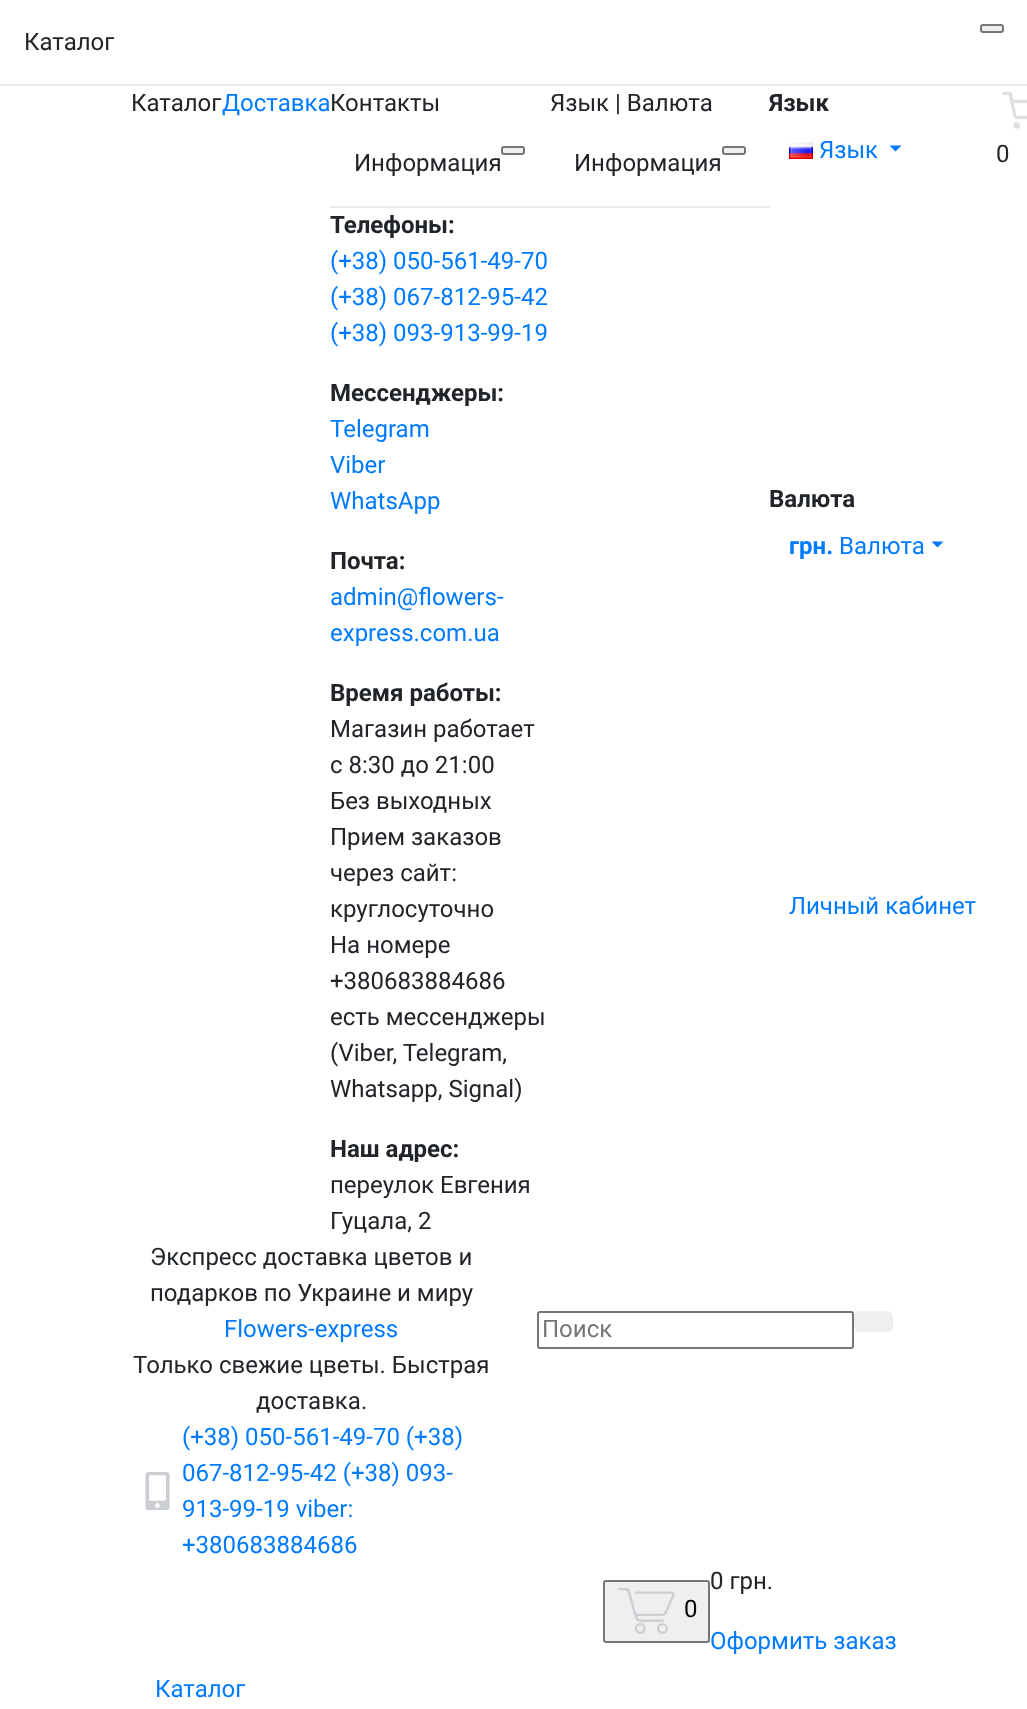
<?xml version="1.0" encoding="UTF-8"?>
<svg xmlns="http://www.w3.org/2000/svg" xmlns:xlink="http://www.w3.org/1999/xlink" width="1027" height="1709">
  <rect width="100%" height="100%" fill="#ffffff" />
  <rect y="84" width="1027" height="2" fill="#e9ecef" />
  <rect x="981" y="25" width="22" height="7" rx="2" fill="#efefef" stroke="#767676" stroke-width="2" />
  <rect x="330" y="206" width="440" height="2" fill="#e9ecef" />
  <rect x="502" y="147" width="22" height="7" rx="2" fill="#efefef" stroke="#767676" stroke-width="2" />
  <rect x="723" y="147" width="22" height="7" rx="2" fill="#efefef" stroke="#767676" stroke-width="2" />
  <image x="789" y="142" width="24" height="17" xlink:href="image1.png" />
  <path d="M 889.5 145.5 h 12 l -6 6 z" fill="#007bff" />
  <path d="M 931.5 541.5 h 12 l -6 6 z" fill="#007bff" />
  <image x="1002" y="92" width="25" height="37" xlink:href="image2.png" />
  <rect x="538" y="1312" width="315" height="36" rx="2" fill="none" stroke="#767676" stroke-width="2" />
  <rect x="854" y="1311" width="39" height="21" rx="6" fill="#efefef" />
  <image x="145" y="1472" width="25" height="38" xlink:href="image3.png" />
  <rect x="604" y="1581" width="105" height="61" rx="2" fill="#efefef" stroke="#767676" stroke-width="2" />
  <image x="618" y="1588" width="57" height="46" xlink:href="image4.png" />
  <text x="24" y="50" style="font-family: Roboto; font-size: 24px; fill: #212529">Каталог</text>
  <text x="131" y="111" style="font-family: Roboto; font-size: 24px; fill: #212529">Каталог</text>
  <text x="222" y="111" style="font-family: Roboto; font-size: 24px; fill: #007bff">Доставка</text>
  <text x="330" y="111" style="font-family: Roboto; font-size: 24px; fill: #212529">Контакты</text>
  <text x="354" y="171" style="font-family: Roboto; font-size: 24px; fill: #212529">Информация</text>
  <text x="330" y="233" style="font-family: Roboto; font-size: 24px; font-weight: bold; fill: #212529">Телефоны:</text>
  <text x="330" y="269" style="font-family: Roboto; font-size: 24px; fill: #007bff">(+38) 050-561-49-70</text>
  <text x="330" y="305" style="font-family: Roboto; font-size: 24px; fill: #007bff">(+38) 067-812-95-42</text>
  <text x="330" y="341" style="font-family: Roboto; font-size: 24px; fill: #007bff">(+38) 093-913-99-19</text>
  <text x="330" y="401" style="font-family: Roboto; font-size: 24px; font-weight: bold; fill: #212529">Мессенджеры:</text>
  <text x="330" y="437" style="font-family: Roboto; font-size: 24px; fill: #007bff">Telegram</text>
  <text x="330" y="473" style="font-family: Roboto; font-size: 24px; fill: #007bff">Viber</text>
  <text x="330" y="509" style="font-family: Roboto; font-size: 24px; fill: #007bff">WhatsApp</text>
  <text x="330" y="569" style="font-family: Roboto; font-size: 24px; font-weight: bold; fill: #212529">Почта:</text>
  <text x="330" y="605" style="font-family: Roboto; font-size: 24px; fill: #007bff">admin@flowers-</text>
  <text x="330" y="641" style="font-family: Roboto; font-size: 24px; fill: #007bff">express.com.ua</text>
  <text x="330" y="701" style="font-family: Roboto; font-size: 24px; font-weight: bold; fill: #212529">Время работы:</text>
  <text x="330" y="737" style="font-family: Roboto; font-size: 24px; fill: #212529">Магазин работает</text>
  <text x="330" y="773" style="font-family: Roboto; font-size: 24px; fill: #212529">с 8:30 до 21:00</text>
  <text x="330" y="809" style="font-family: Roboto; font-size: 24px; fill: #212529">Без выходных</text>
  <text x="330" y="845" style="font-family: Roboto; font-size: 24px; fill: #212529">Прием заказов</text>
  <text x="330" y="881" style="font-family: Roboto; font-size: 24px; fill: #212529">через сайт:</text>
  <text x="330" y="917" style="font-family: Roboto; font-size: 24px; fill: #212529">круглосуточно</text>
  <text x="330" y="953" style="font-family: Roboto; font-size: 24px; fill: #212529">На номере</text>
  <text x="330" y="989" style="font-family: Roboto; font-size: 24px; fill: #212529">+380683884686</text>
  <text x="330" y="1025" style="font-family: Roboto; font-size: 24px; fill: #212529">есть мессенджеры</text>
  <text x="330" y="1061" style="font-family: Roboto; font-size: 24px; fill: #212529">(Viber, Telegram,</text>
  <text x="330" y="1097" style="font-family: Roboto; font-size: 24px; fill: #212529">Whatsapp, Signal)</text>
  <text x="330" y="1157" style="font-family: Roboto; font-size: 24px; font-weight: bold; fill: #212529">Наш адрес:</text>
  <text x="330" y="1193" style="font-family: Roboto; font-size: 24px; fill: #212529">переулок Евгения</text>
  <text x="330" y="1229" style="font-family: Roboto; font-size: 24px; fill: #212529">Гуцала, 2</text>
  <text x="550" y="111" style="font-family: Roboto; font-size: 24px; fill: #212529">Язык | Валюта</text>
  <text x="574" y="171" style="font-family: Roboto; font-size: 24px; fill: #212529">Информация</text>
  <text x="769" y="111" style="font-family: Roboto; font-size: 24px; font-weight: bold; fill: #212529">Язык</text>
  <text x="819" y="158" style="font-family: Roboto; font-size: 24px; fill: #007bff">Язык</text>
  <text x="769" y="507" style="font-family: Roboto; font-size: 24px; font-weight: bold; fill: #212529">Валюта</text>
  <text x="789" y="554" style="font-family: Roboto; font-size: 24px; font-weight: bold; fill: #007bff">грн.</text>
  <text x="839" y="554" style="font-family: Roboto; font-size: 24px; fill: #007bff">Валюта</text>
  <text x="789" y="914" style="font-family: Roboto; font-size: 24px; fill: #007bff">Личный кабинет</text>
  <text x="996" y="162" style="font-family: Roboto; font-size: 24px; fill: #212529">0</text>
  <text x="150" y="1265" style="font-family: Roboto; font-size: 24px; fill: #212529">Экспресс доставка цветов и</text>
  <text x="150" y="1301" style="font-family: Roboto; font-size: 24px; fill: #212529">подарков по Украине и миру</text>
  <text x="224" y="1337" style="font-family: Roboto; font-size: 24px; fill: #007bff">Flowers-express</text>
  <text x="133" y="1373" style="font-family: Roboto; font-size: 24px; fill: #212529">Только свежие цветы. Быстрая</text>
  <text x="256" y="1409" style="font-family: Roboto; font-size: 24px; fill: #212529">доставка.</text>
  <text x="542" y="1337" style="font-family: Roboto; font-size: 24px; fill: #757575">Поиск</text>
  <text x="182" y="1445" style="font-family: Roboto; font-size: 24px; fill: #007bff">(+38) 050-561-49-70 (+38)</text>
  <text x="182" y="1481" style="font-family: Roboto; font-size: 24px; fill: #007bff">067-812-95-42 (+38) 093-</text>
  <text x="182" y="1517" style="font-family: Roboto; font-size: 24px; fill: #007bff">913-99-19 viber:</text>
  <text x="182" y="1553" style="font-family: Roboto; font-size: 24px; fill: #007bff">+380683884686</text>
  <text x="684" y="1617" style="font-family: Roboto; font-size: 24px; fill: #000000">0</text>
  <text x="710" y="1589" style="font-family: Roboto; font-size: 24px; fill: #212529">0 грн.</text>
  <text x="710" y="1649" style="font-family: Roboto; font-size: 24px; fill: #007bff">Оформить заказ</text>
  <text x="155" y="1697" style="font-family: Roboto; font-size: 24px; fill: #007bff">Каталог</text>
</svg>
